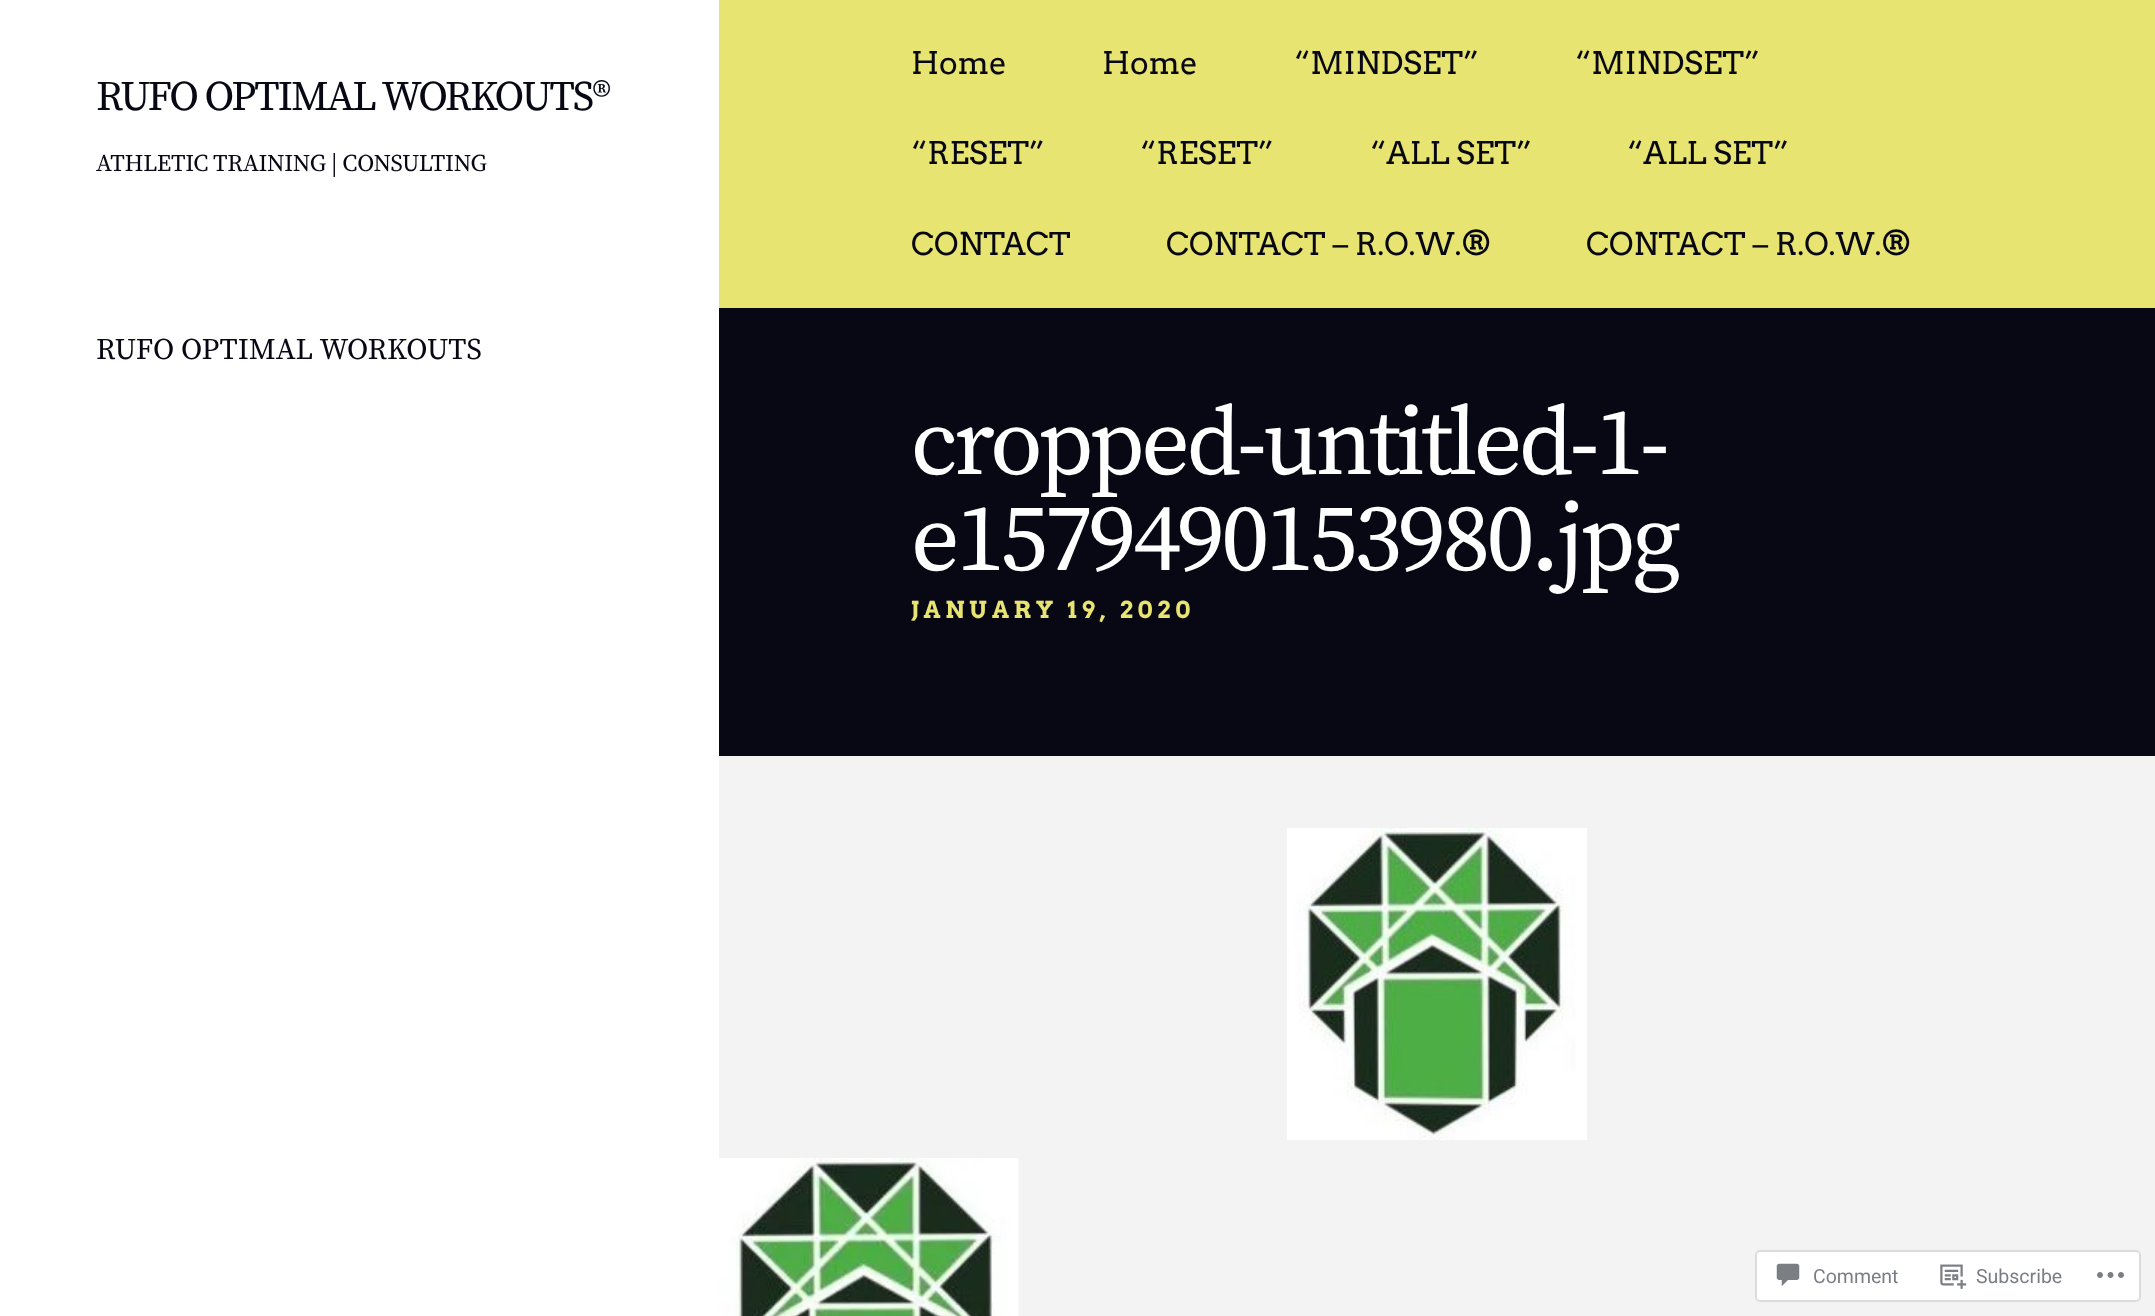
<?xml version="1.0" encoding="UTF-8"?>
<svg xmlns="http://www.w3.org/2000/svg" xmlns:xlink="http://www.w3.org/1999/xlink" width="2155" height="1316">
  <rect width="100%" height="100%" fill="#ffffff" />
  <rect x="719" width="1436" height="308" fill="#e8e472" />
  <rect x="719" y="756" width="1436" height="560" fill="#f3f3f3" />
  <rect x="719" y="308" width="1436" height="448" fill="#080814" />
  <image x="1287" y="828" width="300" height="312" xlink:href="image1.png" />
  <image x="719" y="1158" width="300" height="158" xlink:href="image2.png" />
  <rect x="1756" y="1251" width="384" height="50" rx="4" fill="#ffffff" stroke="#dcdcde" stroke-width="2" />
  <image x="1776" y="1263" width="24" height="24" xlink:href="image3.png" />
  <image x="1940" y="1264" width="27" height="25" xlink:href="image4.png" />
  <image x="2097" y="1272" width="27" height="6" xlink:href="image5.png" />
  <text x="96" y="110" style="font-family: Source Serif Pro; font-size: 42px; letter-spacing: -2.1px; fill: #080814">RUFO OPTIMAL WORKOUTS®</text>
  <text x="96" y="171" style="font-family: Source Serif Pro; font-size: 24px; letter-spacing: -0.25px; fill: #080814">ATHLETIC TRAINING | CONSULTING</text>
  <text x="911" y="74" style="font-family: Arvo; font-size: 31.25px; fill: #080814">Home</text>
  <text x="1102" y="74" style="font-family: Arvo; font-size: 31.25px; fill: #080814">Home</text>
  <text x="1294" y="74" style="font-family: Arvo; font-size: 31.25px; fill: #080814">“MINDSET”</text>
  <text x="1575" y="74" style="font-family: Arvo; font-size: 31.25px; fill: #080814">“MINDSET”</text>
  <text x="911" y="164" style="font-family: Arvo; font-size: 31.25px; fill: #080814">“RESET”</text>
  <text x="1140" y="164" style="font-family: Arvo; font-size: 31.25px; fill: #080814">“RESET”</text>
  <text x="1370" y="164" style="font-family: Arvo; font-size: 31.25px; fill: #080814">“ALL SET”</text>
  <text x="1627" y="164" style="font-family: Arvo; font-size: 31.25px; fill: #080814">“ALL SET”</text>
  <text x="911" y="255" style="font-family: Arvo; font-size: 31.25px; fill: #080814">CONTACT</text>
  <text x="1166" y="255" style="font-family: Arvo; font-size: 31.25px; fill: #080814">CONTACT – R.O.W.®</text>
  <text x="1586" y="255" style="font-family: Arvo; font-size: 31.25px; fill: #080814">CONTACT – R.O.W.®</text>
  <text x="911" y="474" style="font-family: Source Serif Pro; font-size: 96px; letter-spacing: -3.8px; fill: #ffffff">cropped-untitled-1-</text>
  <text x="911" y="570" style="font-family: Source Serif Pro; font-size: 96px; letter-spacing: -3.8px; fill: #ffffff">e1579490153980.jpg</text>
  <text x="911" y="618" style="font-family: Arvo; font-size: 23.4px; font-weight: bold; letter-spacing: 4.7px; fill: #e8e472">JANUARY 19, 2020</text>
  <text x="96" y="359" style="font-family: Source Serif Pro; font-size: 30px; fill: #080814">RUFO OPTIMAL WORKOUTS</text>
  <text x="1813" y="1283" style="font-family: Roboto; font-size: 19.5px; fill: #7a7e84">Comment</text>
  <text x="1976" y="1283" style="font-family: Roboto; font-size: 19.5px; fill: #7a7e84">Subscribe</text>
</svg>
